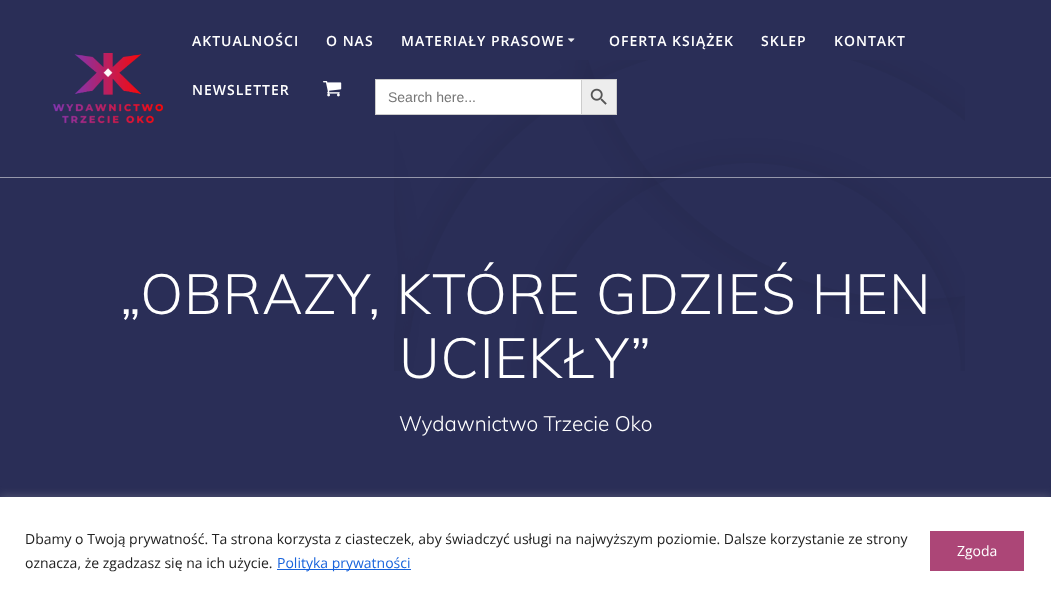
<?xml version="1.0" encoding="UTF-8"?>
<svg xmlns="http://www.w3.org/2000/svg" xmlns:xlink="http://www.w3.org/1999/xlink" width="1051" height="592">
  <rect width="100%" height="100%" fill="#2a2e57" />
  <image x="394" y="60" width="571" height="311" xlink:href="image5.png" />
  <rect y="177" width="1051" height="1" fill="#ffffff" fill-opacity="0.5" />
  <image x="52" y="53" width="111" height="71" xlink:href="image1.png" />
  <image x="568" y="38" width="7" height="4" xlink:href="image2.png" />
  <image x="323" y="81" width="19" height="16" xlink:href="image3.png" />
  <rect x="376" y="80" width="205" height="34" fill="#ffffff" />
  <rect x="375" y="79" width="206" height="1" fill="#cccccc" />
  <rect x="375" y="114" width="206" height="1" fill="#cccccc" />
  <rect x="375" y="79" width="1" height="36" fill="#cccccc" />
  <rect x="581.5" y="79.5" width="35" height="35" fill="#ededed" stroke="#cccccc" />
  <image x="590" y="88" width="17" height="17" xlink:href="image4.png" />
  <rect y="496" width="1051" height="95" fill="#acabab" fill-opacity="0.3" filter="blur(5px)" />
  <rect y="497" width="1051" height="95" fill="#ffffff" />
  <rect x="277" y="569" width="134" height="1" fill="#1863dc" />
  <rect x="929" y="530" width="96" height="42" rx="1" fill="#ac4677" stroke="#ffffff" stroke-width="2" />
  <text x="192" y="46" style="font-family: Open Sans; font-size: 14px; font-weight: 600; letter-spacing: 1px; fill: #ffffff">AKTUALNOŚCI</text>
  <text x="326" y="46" style="font-family: Open Sans; font-size: 14px; font-weight: 600; letter-spacing: 1px; fill: #ffffff">O NAS</text>
  <text x="401" y="46" style="font-family: Open Sans; font-size: 14px; font-weight: 600; letter-spacing: 1px; fill: #ffffff">MATERIAŁY PRASOWE</text>
  <text x="609" y="46" style="font-family: Open Sans; font-size: 14px; font-weight: 600; letter-spacing: 1px; fill: #ffffff">OFERTA KSIĄŻEK</text>
  <text x="761" y="46" style="font-family: Open Sans; font-size: 14px; font-weight: 600; letter-spacing: 1px; fill: #ffffff">SKLEP</text>
  <text x="834" y="46" style="font-family: Open Sans; font-size: 14px; font-weight: 600; letter-spacing: 1px; fill: #ffffff">KONTAKT</text>
  <text x="192" y="95" style="font-family: Open Sans; font-size: 14px; font-weight: 600; letter-spacing: 1px; fill: #ffffff">NEWSLETTER</text>
  <text x="388" y="102" style="font-family: Liberation Sans; font-size: 14px; fill: #757575">Search here...</text>
  <text x="120" y="314" style="font-family: Muli; font-size: 56px; font-weight: 300; letter-spacing: 0.9px; fill: #ffffff">„OBRAZY, KTÓRE GDZIEŚ HEN</text>
  <text x="399" y="378" style="font-family: Muli; font-size: 56px; font-weight: 300; letter-spacing: 0.9px; fill: #ffffff">UCIEKŁY”</text>
  <text x="399" y="431" style="font-family: Muli; font-size: 20.75px; font-weight: 300; fill: #ffffff">Wydawnictwo Trzecie Oko</text>
  <text x="25" y="544" style="font-family: Open Sans; font-size: 14px; fill: #212121">Dbamy o Twoją prywatność. Ta strona korzysta z ciasteczek, aby świadczyć usługi na najwyższym poziomie. Dalsze korzystanie ze strony</text>
  <text x="25" y="568" style="font-family: Open Sans; font-size: 14px; fill: #212121">oznacza, że zgadzasz się na ich użycie.</text>
  <text x="277" y="568" style="font-family: Open Sans; font-size: 14px; fill: #1863dc">Polityka prywatności</text>
  <text x="957" y="556" style="font-family: Open Sans; font-size: 14px; fill: #ffffff">Zgoda</text>
</svg>
